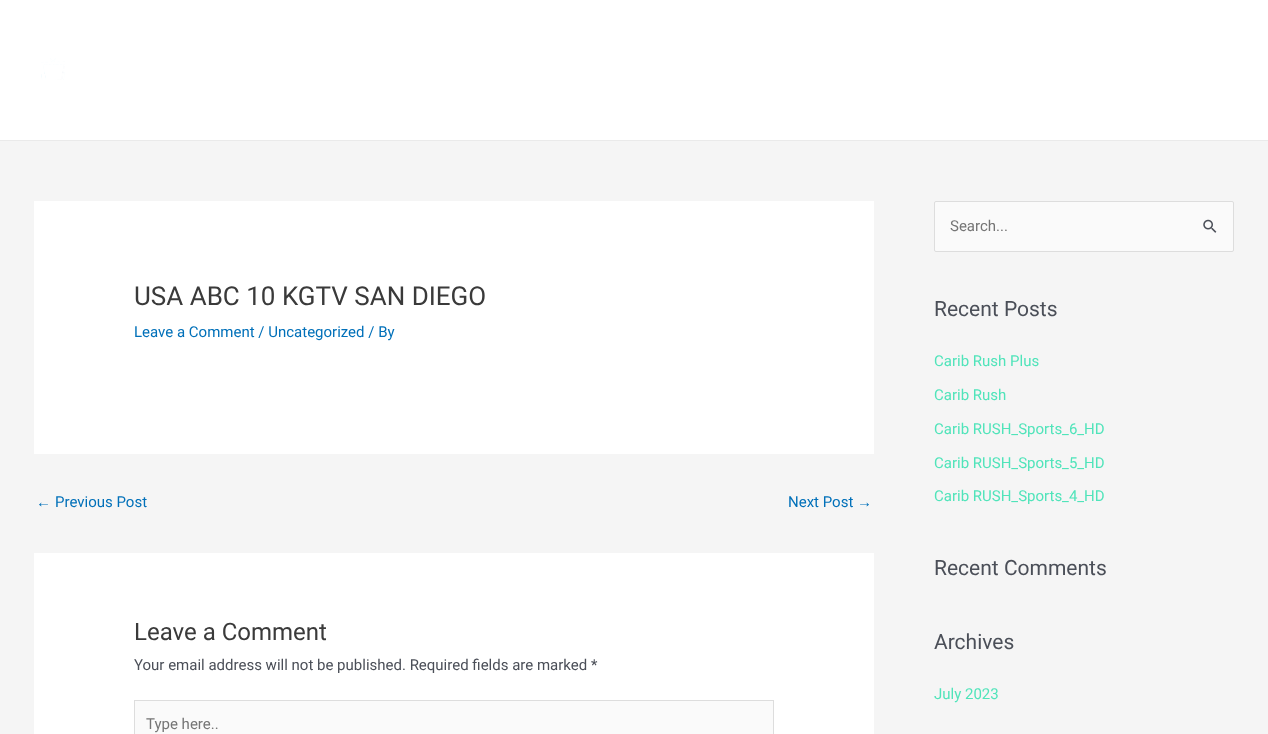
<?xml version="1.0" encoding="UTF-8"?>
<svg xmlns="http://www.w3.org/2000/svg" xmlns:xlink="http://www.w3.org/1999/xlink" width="1268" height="734">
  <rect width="100%" height="100%" fill="#f5f5f5" />
  <rect width="1268" height="140" fill="#ffffff" />
  <rect y="140" width="1268" height="1" fill="#eaeaea" />
  <image x="41" y="58" width="24" height="22" xlink:href="image1.png" />
  <rect x="34" y="201" width="840" height="253" fill="#ffffff" />
  <rect x="34" y="553" width="840" height="181" fill="#ffffff" />
  <rect x="134.5" y="700.5" width="639" height="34" fill="#fafafa" stroke="#dddddd" />
  <rect x="934.5" y="201.5" width="299" height="50" rx="1.5" fill="#fafafa" stroke="#dddddd" />
  <image x="1203" y="219" width="14" height="14" xlink:href="image2.png" />
  <text x="134" y="305" style="font-family: Roboto; font-size: 26px; fill: #3a3a3a">USA ABC 10 KGTV SAN DIEGO</text>
  <text x="134" y="337" style="font-family: Roboto; font-size: 15px; fill: #0170b9">Leave a Comment / Uncategorized / By</text>
  <text x="36" y="507" style="font-family: Liberation Sans; font-size: 15px; fill: #0170b9">←</text>
  <text x="55" y="507" style="font-family: Roboto; font-size: 15px; fill: #0170b9">Previous Post</text>
  <text x="788" y="507" style="font-family: Roboto; font-size: 15px; fill: #0170b9">Next Post</text>
  <text x="857" y="507" style="font-family: Liberation Sans; font-size: 15px; fill: #0170b9">→</text>
  <text x="134" y="640" style="font-family: Roboto; font-size: 24px; fill: #3a3a3a">Leave a Comment</text>
  <text x="134" y="670" style="font-family: Roboto; font-size: 15px; fill: #4b4f58">Your email address will not be published. Required fields are marked *</text>
  <text x="146" y="729" style="font-family: Roboto; font-size: 15px; fill: #757575">Type here..</text>
  <text x="950" y="231" style="font-family: Roboto; font-size: 15px; fill: #757575">Search...</text>
  <text x="934" y="316" style="font-family: Roboto; font-size: 21px; fill: #4b4f58">Recent Posts</text>
  <text x="934" y="366" style="font-family: Roboto; font-size: 15px; fill: #50e4ba">Carib Rush Plus</text>
  <text x="934" y="400" style="font-family: Roboto; font-size: 15px; fill: #50e4ba">Carib Rush</text>
  <text x="934" y="434" style="font-family: Roboto; font-size: 15px; fill: #50e4ba">Carib RUSH_Sports_6_HD</text>
  <text x="934" y="468" style="font-family: Roboto; font-size: 15px; fill: #50e4ba">Carib RUSH_Sports_5_HD</text>
  <text x="934" y="501" style="font-family: Roboto; font-size: 15px; fill: #50e4ba">Carib RUSH_Sports_4_HD</text>
  <text x="934" y="575" style="font-family: Roboto; font-size: 21px; fill: #4b4f58">Recent Comments</text>
  <text x="934" y="649" style="font-family: Roboto; font-size: 21px; fill: #4b4f58">Archives</text>
  <text x="934" y="699" style="font-family: Roboto; font-size: 15px; fill: #50e4ba">July 2023</text>
</svg>
